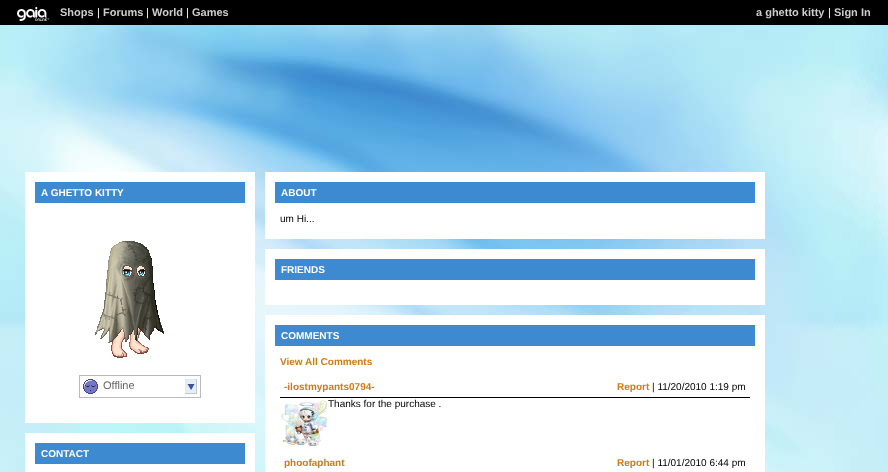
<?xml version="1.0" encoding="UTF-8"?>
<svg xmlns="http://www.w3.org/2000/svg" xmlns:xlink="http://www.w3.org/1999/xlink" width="888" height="472">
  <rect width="100%" height="100%" fill="#ffffff" />
  <image x="0" y="25" width="888" height="447" xlink:href="image1.png" />
  <rect width="888" height="25" fill="#000000" />
  <image x="17" y="7" width="32" height="14" xlink:href="image2.png" />
  <rect x="25" y="172" width="230" height="251" fill="#ffffff" />
  <rect x="35" y="182" width="210" height="21" fill="#3d8ad0" />
  <image x="95" y="241" width="69" height="117" xlink:href="image3.png" />
  <rect x="79.5" y="375.5" width="121" height="22" fill="none" stroke="#bbbbbb" />
  <image x="185" y="379" width="12" height="15" xlink:href="image4.png" />
  <image x="83" y="379" width="15" height="15" xlink:href="image5.png" />
  <rect x="25" y="433" width="230" height="39" fill="#ffffff" />
  <rect x="35" y="443" width="210" height="21" fill="#3d8ad0" />
  <rect x="265" y="172" width="500" height="67" fill="#ffffff" />
  <rect x="275" y="182" width="480" height="21" fill="#3d8ad0" />
  <rect x="265" y="249" width="500" height="56" fill="#ffffff" />
  <rect x="275" y="259" width="480" height="21" fill="#3d8ad0" />
  <rect x="265" y="315" width="500" height="157" fill="#ffffff" />
  <rect x="275" y="325" width="480" height="21" fill="#3d8ad0" />
  <rect x="280" y="397" width="470" height="1" fill="#000000" />
  <image x="281" y="400" width="47" height="46" xlink:href="image6.png" />
  <text x="60" y="16" style="font-family: Liberation Sans; font-size: 11px; font-weight: bold; fill: #cccccc">Shops</text>
  <text x="97" y="16" style="font-family: Liberation Sans; font-size: 11px; fill: #ffffff">|</text>
  <text x="103" y="16" style="font-family: Liberation Sans; font-size: 11px; font-weight: bold; fill: #cccccc">Forums</text>
  <text x="146" y="16" style="font-family: Liberation Sans; font-size: 11px; fill: #ffffff">|</text>
  <text x="152" y="16" style="font-family: Liberation Sans; font-size: 11px; font-weight: bold; fill: #cccccc">World</text>
  <text x="186" y="16" style="font-family: Liberation Sans; font-size: 11px; fill: #ffffff">|</text>
  <text x="192" y="16" style="font-family: Liberation Sans; font-size: 11px; font-weight: bold; fill: #cccccc">Games</text>
  <text x="756" y="16" style="font-family: Liberation Sans; font-size: 11px; font-weight: bold; fill: #cccccc">a ghetto kitty</text>
  <text x="828" y="16" style="font-family: Liberation Sans; font-size: 11px; fill: #ffffff">|</text>
  <text x="834" y="16" style="font-family: Liberation Sans; font-size: 11px; font-weight: bold; fill: #cccccc">Sign In</text>
  <text x="41" y="196" style="font-family: Liberation Sans; font-size: 10px; font-weight: bold; fill: #ffffff">A GHETTO KITTY</text>
  <text x="103" y="389" style="font-family: Liberation Sans; font-size: 11px; fill: #666666">Offline</text>
  <text x="41" y="457" style="font-family: Liberation Sans; font-size: 10px; font-weight: bold; fill: #ffffff">CONTACT</text>
  <text x="281" y="196" style="font-family: Liberation Sans; font-size: 10px; font-weight: bold; fill: #ffffff">ABOUT</text>
  <text x="280" y="222" style="font-family: Liberation Sans; font-size: 10px; fill: #000000">um Hi...</text>
  <text x="281" y="273" style="font-family: Liberation Sans; font-size: 10px; font-weight: bold; fill: #ffffff">FRIENDS</text>
  <text x="281" y="339" style="font-family: Liberation Sans; font-size: 10px; font-weight: bold; fill: #ffffff">COMMENTS</text>
  <text x="280" y="365" style="font-family: Liberation Sans; font-size: 10px; font-weight: bold; fill: #d37b14">View All Comments</text>
  <text x="284" y="390" style="font-family: Liberation Sans; font-size: 10px; font-weight: bold; fill: #d37b14">-ilostmypants0794-</text>
  <text x="617" y="390" style="font-family: Liberation Sans; font-size: 10px; font-weight: bold; fill: #d37b14">Report</text>
  <text x="652" y="390" style="font-family: Liberation Sans; font-size: 10px; fill: #000000">| 11/20/2010 1:19 pm</text>
  <text x="328" y="407" style="font-family: Liberation Sans; font-size: 10px; fill: #000000">Thanks for the purchase .</text>
  <text x="284" y="466" style="font-family: Liberation Sans; font-size: 10px; font-weight: bold; fill: #d37b14">phoofaphant</text>
  <text x="617" y="466" style="font-family: Liberation Sans; font-size: 10px; font-weight: bold; fill: #d37b14">Report</text>
  <text x="652" y="466" style="font-family: Liberation Sans; font-size: 10px; fill: #000000">| 11/01/2010 6:44 pm</text>
</svg>
